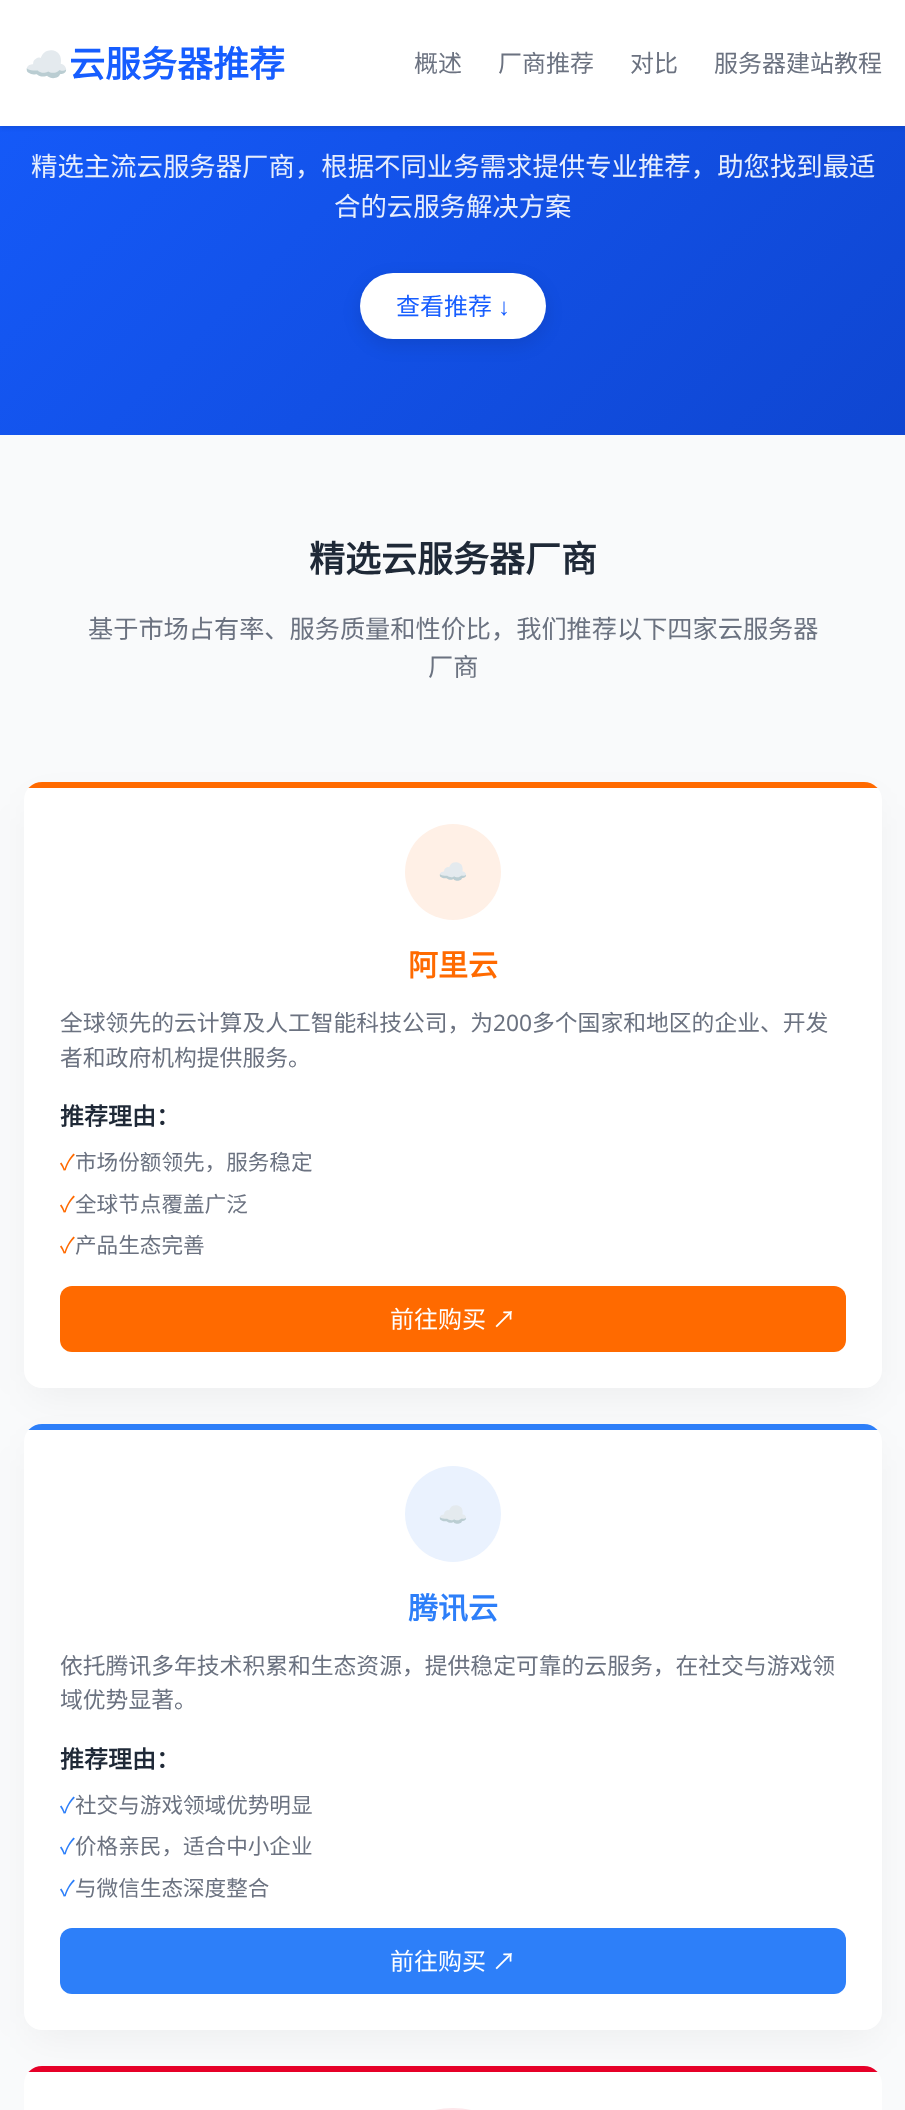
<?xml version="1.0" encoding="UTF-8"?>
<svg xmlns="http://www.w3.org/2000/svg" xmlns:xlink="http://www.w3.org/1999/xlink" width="905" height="2110">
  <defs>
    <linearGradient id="g1" gradientUnits="userSpaceOnUse" x1="94" y1="-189" x2="812" y2="529"><stop offset="0" stop-color="#165dff" /><stop offset="1" stop-color="#0f46d1" /></linearGradient>
    <clipPath id="clip1"><rect x="24" y="782" width="858" height="606" rx="18" /></clipPath>
    <clipPath id="clip2"><rect x="24" y="1424" width="858" height="606" rx="18" /></clipPath>
    <clipPath id="clip3"><rect x="24" y="2066" width="858" height="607" rx="18" /></clipPath>
  </defs>
  <rect width="100%" height="100%" fill="#f9fafb" />
  <rect y="126" width="905" height="309" fill="url(#g1)" />
  <rect y="2" width="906" height="126" fill="#000000" fill-opacity="0.1" filter="blur(2px)" />
  <rect width="905" height="126" fill="#ffffff" />
  <rect x="360" y="279" width="186" height="66" rx="33" fill="#000000" fill-opacity="0.1" filter="blur(9px)" />
  <rect x="360" y="273" width="186" height="66" rx="33" fill="#ffffff" />
  <rect x="32" y="804" width="843" height="591" rx="11" fill="#000000" fill-opacity="0.05" filter="blur(19px)" />
  <rect x="24" y="782" width="858" height="606" rx="18" fill="#ffffff" />
  <g clip-path="url(#clip1)">
    <rect x="24" y="782" width="858" height="6" fill="#ff6a00" />
  </g>
  <circle cx="453" cy="872" r="48" fill="#fff0e6" />
  <rect x="60" y="1286" width="786" height="66" rx="12" fill="#ff6a00" />
  <rect x="32" y="1446" width="843" height="591" rx="11" fill="#000000" fill-opacity="0.05" filter="blur(19px)" />
  <rect x="24" y="1424" width="858" height="606" rx="18" fill="#ffffff" />
  <g clip-path="url(#clip2)">
    <rect x="24" y="1424" width="858" height="6" fill="#2d7ff9" />
  </g>
  <circle cx="453" cy="1514" r="48" fill="#eaf2fe" />
  <rect x="60" y="1928" width="786" height="66" rx="12" fill="#2d7ff9" />
  <rect x="24" y="2066" width="858" height="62" rx="18" fill="#ffffff" />
  <g clip-path="url(#clip3)">
    <rect x="24" y="2066" width="858" height="6" fill="#e60028" />
  </g>
  <rect x="405" y="2108" width="96" height="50" rx="48" fill="#fde6ea" />
  <text x="24" y="77" style="font-family: Noto Color Emoji; font-size: 36px; font-weight: bold; fill: #165dff">☁️</text>
  <text x="69" y="77" style="font-family: Noto Sans CJK SC; font-size: 36px; font-weight: bold; fill: #165dff">云服务器推荐</text>
  <text x="414" y="72" style="font-family: Noto Sans CJK SC; font-size: 24px; fill: #6b7280">概述</text>
  <text x="498" y="72" style="font-family: Noto Sans CJK SC; font-size: 24px; fill: #6b7280">厂商推荐</text>
  <text x="630" y="72" style="font-family: Noto Sans CJK SC; font-size: 24px; fill: #6b7280">对比</text>
  <text x="714" y="72" style="font-family: Noto Sans CJK SC; font-size: 24px; fill: #6b7280">服务器建站教程</text>
  <text x="31" y="176" style="font-family: Noto Sans CJK SC; font-size: 26.4px; fill: #e7eefd">精选主流云服务器厂商，根据不同业务需求提供专业推荐，助您找到最适</text>
  <text x="334" y="216" style="font-family: Noto Sans CJK SC; font-size: 26.4px; fill: #e7eefd">合的云服务解决方案</text>
  <text x="396" y="315" style="font-family: Noto Sans CJK SC; font-size: 24px; fill: #165dff">查看推荐</text>
  <text x="498" y="315" style="font-family: Liberation Sans; font-size: 24px; fill: #165dff">↓</text>
  <text x="309" y="572" style="font-family: Noto Sans CJK SC; font-size: 36px; font-weight: bold; fill: #1f2937">精选云服务器厂商</text>
  <text x="88" y="638" style="font-family: Noto Sans CJK SC; font-size: 25.2px; fill: #6b7280">基于市场占有率、服务质量和性价比，我们推荐以下四家云服务器</text>
  <text x="428" y="676" style="font-family: Noto Sans CJK SC; font-size: 25.2px; fill: #6b7280">厂商</text>
  <text x="438" y="880" style="font-family: Noto Color Emoji; font-size: 24px; fill: #ff6a00">☁️</text>
  <text x="408" y="976" style="font-family: Noto Sans CJK SC; font-size: 30px; font-weight: bold; fill: #ff6a00">阿里云</text>
  <text x="60" y="1031" style="font-family: Noto Sans CJK SC; font-size: 22.8px; fill: #6b7280">全球领先的云计算及人工智能科技公司，为</text>
  <text x="493" y="1031" style="font-family: Noto Sans; font-size: 22.8px; fill: #6b7280">200</text>
  <text x="532" y="1031" style="font-family: Noto Sans CJK SC; font-size: 22.8px; fill: #6b7280">多个国家和地区的企业、开发</text>
  <text x="60" y="1066" style="font-family: Noto Sans CJK SC; font-size: 22.8px; fill: #6b7280">者和政府机构提供服务。</text>
  <text x="60" y="1125" style="font-family: Noto Sans CJK SC; font-size: 24px; font-weight: bold; fill: #1f2937">推荐理由：</text>
  <text x="60" y="1170" style="font-family: Noto Sans CJK SC; font-size: 21.6px; fill: #ff6a00">✓</text>
  <text x="75" y="1170" style="font-family: Noto Sans CJK SC; font-size: 21.6px; fill: #6b7280">市场份额领先，服务稳定</text>
  <text x="60" y="1212" style="font-family: Noto Sans CJK SC; font-size: 21.6px; fill: #ff6a00">✓</text>
  <text x="75" y="1212" style="font-family: Noto Sans CJK SC; font-size: 21.6px; fill: #6b7280">全球节点覆盖广泛</text>
  <text x="60" y="1253" style="font-family: Noto Sans CJK SC; font-size: 21.6px; fill: #ff6a00">✓</text>
  <text x="75" y="1253" style="font-family: Noto Sans CJK SC; font-size: 21.6px; fill: #6b7280">产品生态完善</text>
  <text x="390" y="1328" style="font-family: Noto Sans CJK SC; font-size: 24px; fill: #ffffff">前往购买</text>
  <text x="492" y="1328" style="font-family: Noto Sans CJK SC; font-size: 24px; fill: #ffffff">↗</text>
  <text x="438" y="1523" style="font-family: Noto Color Emoji; font-size: 24px; fill: #2d7ff9">☁️</text>
  <text x="408" y="1619" style="font-family: Noto Sans CJK SC; font-size: 30px; font-weight: bold; fill: #2d7ff9">腾讯云</text>
  <text x="60" y="1674" style="font-family: Noto Sans CJK SC; font-size: 22.8px; fill: #6b7280">依托腾讯多年技术积累和生态资源，提供稳定可靠的云服务，在社交与游戏领</text>
  <text x="60" y="1708" style="font-family: Noto Sans CJK SC; font-size: 22.8px; fill: #6b7280">域优势显著。</text>
  <text x="60" y="1768" style="font-family: Noto Sans CJK SC; font-size: 24px; font-weight: bold; fill: #1f2937">推荐理由：</text>
  <text x="60" y="1813" style="font-family: Noto Sans CJK SC; font-size: 21.6px; fill: #2d7ff9">✓</text>
  <text x="75" y="1813" style="font-family: Noto Sans CJK SC; font-size: 21.6px; fill: #6b7280">社交与游戏领域优势明显</text>
  <text x="60" y="1854" style="font-family: Noto Sans CJK SC; font-size: 21.6px; fill: #2d7ff9">✓</text>
  <text x="75" y="1854" style="font-family: Noto Sans CJK SC; font-size: 21.6px; fill: #6b7280">价格亲民，适合中小企业</text>
  <text x="60" y="1896" style="font-family: Noto Sans CJK SC; font-size: 21.6px; fill: #2d7ff9">✓</text>
  <text x="75" y="1896" style="font-family: Noto Sans CJK SC; font-size: 21.6px; fill: #6b7280">与微信生态深度整合</text>
  <text x="390" y="1970" style="font-family: Noto Sans CJK SC; font-size: 24px; fill: #ffffff">前往购买</text>
  <text x="492" y="1970" style="font-family: Noto Sans CJK SC; font-size: 24px; fill: #ffffff">↗</text>
</svg>
